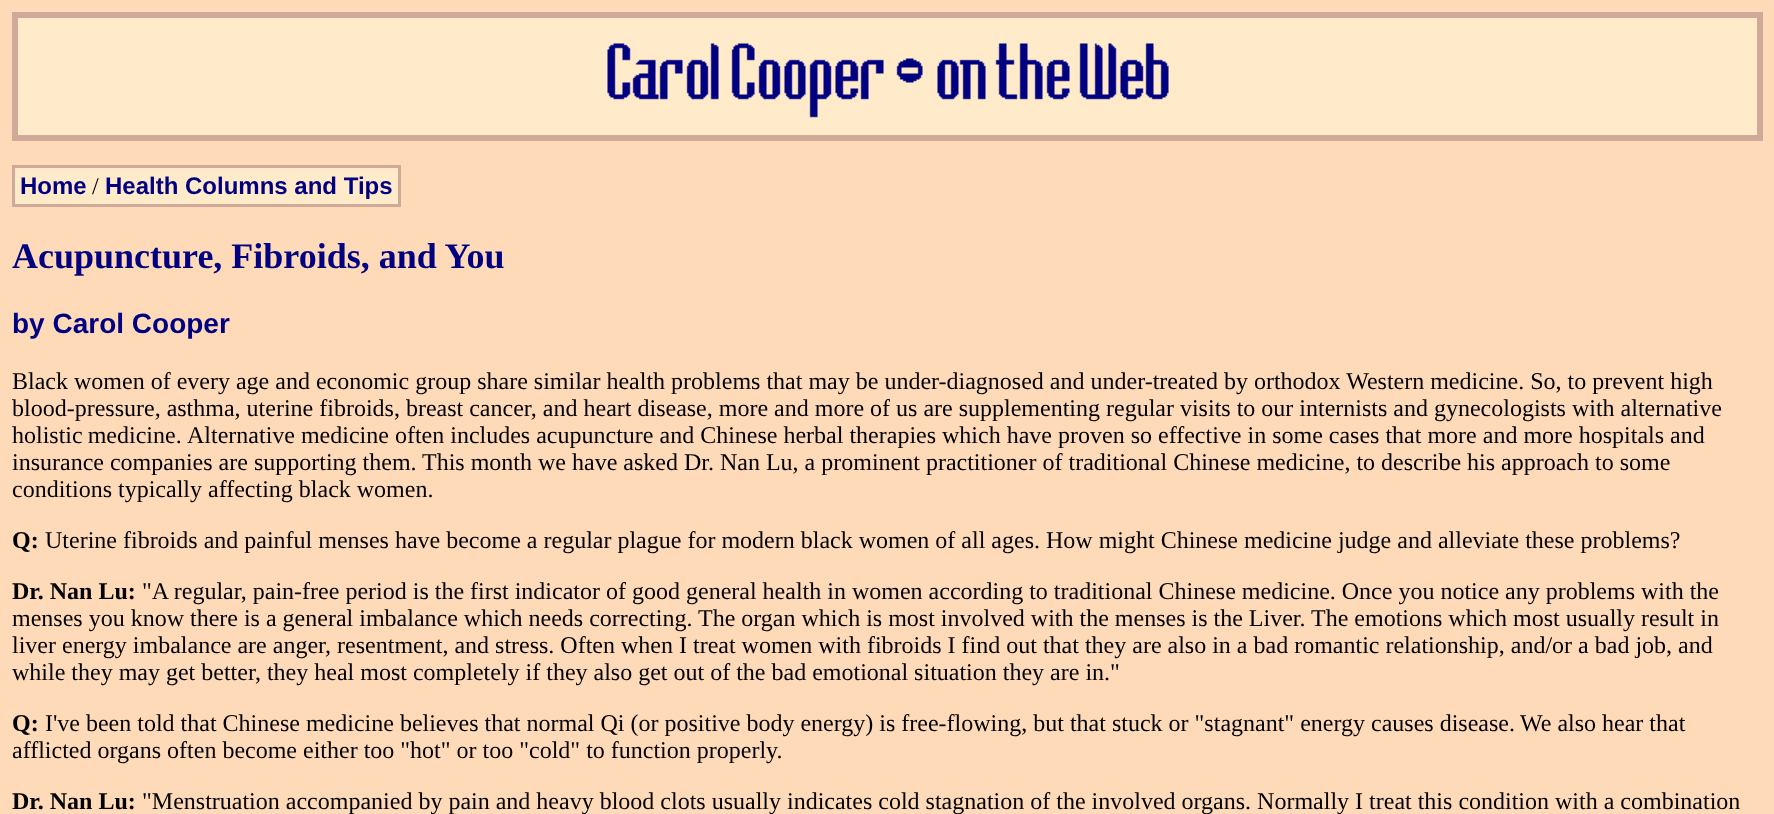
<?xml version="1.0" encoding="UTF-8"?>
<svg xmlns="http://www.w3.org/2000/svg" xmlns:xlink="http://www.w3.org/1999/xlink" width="1774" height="814">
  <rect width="100%" height="100%" fill="#ffdab9" />
  <rect x="15" y="15" width="1745" height="123" fill="#ffeac9" stroke="#cfaa99" stroke-width="6" />
  <image x="607" y="43" width="562" height="75" xlink:href="image1.png" />
  <rect x="13.5" y="166.5" width="386" height="39" fill="#ffeac9" stroke="#cfaa99" stroke-width="3" />
  <text x="20" y="194" style="font-family: Liberation Sans; font-size: 24px; font-weight: bold; fill: #000080">Home</text>
  <text x="92" y="194" style="font-family: Liberation Serif; font-size: 24px; fill: #000000">/</text>
  <text x="105" y="194" style="font-family: Liberation Sans; font-size: 24px; font-weight: bold; fill: #000080">Health Columns and Tips</text>
  <text x="12" y="268" style="font-family: Liberation Serif; font-size: 36px; font-weight: bold; fill: #000080">Acupuncture, Fibroids, and You</text>
  <text x="12" y="333" style="font-family: Liberation Sans; font-size: 28px; font-weight: bold; fill: #000080">by Carol Cooper</text>
  <text x="12" y="389" style="font-family: Liberation Serif; font-size: 24px; fill: #000000">Black women of every age and economic group share similar health problems that may be under-diagnosed and under-treated by orthodox Western medicine. So, to prevent high</text>
  <text x="12" y="416" style="font-family: Liberation Serif; font-size: 24px; fill: #000000">blood-pressure, asthma, uterine fibroids, breast cancer, and heart disease, more and more of us are supplementing regular visits to our internists and gynecologists with alternative</text>
  <text x="12" y="443" word-spacing="-1" style="font-family: Liberation Serif; font-size: 24px; fill: #000000">holistic medicine.</text>
  <text x="187" y="443" style="font-family: Liberation Serif; font-size: 24px; fill: #000000">Alternative medicine often includes acupuncture and Chinese herbal therapies which have proven so effective in some cases that more and more hospitals and</text>
  <text x="12" y="470" style="font-family: Liberation Serif; font-size: 24px; fill: #000000">insurance companies are supporting them.</text>
  <text x="422" y="470" style="font-family: Liberation Serif; font-size: 24px; fill: #000000">This month we have asked Dr. Nan Lu, a prominent practitioner of traditional Chinese medicine, to describe his approach to some</text>
  <text x="12" y="497" style="font-family: Liberation Serif; font-size: 24px; fill: #000000">conditions typically affecting black women.</text>
  <text x="12" y="548" style="font-family: Liberation Serif; font-size: 24px; font-weight: bold; fill: #000000">Q:</text>
  <text x="45" y="548" style="font-family: Liberation Serif; font-size: 24px; fill: #000000">Uterine fibroids and painful menses have become a regular plague for modern black women of all ages. How might Chinese medicine judge and alleviate these problems?</text>
  <text x="12" y="599" style="font-family: Liberation Serif; font-size: 24px; font-weight: bold; fill: #000000">Dr. Nan Lu:</text>
  <text x="142" y="599" style="font-family: Liberation Serif; font-size: 24px; fill: #000000">"A regular, pain-free period is the first indicator of good general health in women according to traditional Chinese medicine. Once you notice any problems with the</text>
  <text x="12" y="626" style="font-family: Liberation Serif; font-size: 24px; fill: #000000">menses you know there is a general imbalance which needs correcting.</text>
  <text x="698" y="626" style="font-family: Liberation Serif; font-size: 24px; fill: #000000">The organ which is most involved with the menses is the Liver.</text>
  <text x="1311" y="626" style="font-family: Liberation Serif; font-size: 24px; fill: #000000">The emotions which most usually result in</text>
  <text x="12" y="653" style="font-family: Liberation Serif; font-size: 24px; fill: #000000">liver energy imbalance are anger, resentment, and stress. Often when I treat women with fibroids I find out that they are also in a bad romantic relationship, and/or a bad job, and</text>
  <text x="12" y="680" style="font-family: Liberation Serif; font-size: 24px; fill: #000000">while they may get better, they heal most completely if they also get out of the bad emotional situation they are in."</text>
  <text x="12" y="731" style="font-family: Liberation Serif; font-size: 24px; font-weight: bold; fill: #000000">Q:</text>
  <text x="45" y="731" style="font-family: Liberation Serif; font-size: 24px; fill: #000000">I've been told that Chinese medicine believes that normal Qi (or positive body energy) is free-flowing, but that stuck or "stagnant" energy causes disease.</text>
  <text x="1520" y="731" style="font-family: Liberation Serif; font-size: 24px; fill: #000000">We also hear that</text>
  <text x="12" y="758" style="font-family: Liberation Serif; font-size: 24px; fill: #000000">afflicted organs often become either too "hot" or too "cold" to function properly.</text>
  <text x="12" y="809" style="font-family: Liberation Serif; font-size: 24px; font-weight: bold; fill: #000000">Dr. Nan Lu:</text>
  <text x="142" y="809" style="font-family: Liberation Serif; font-size: 24px; fill: #000000">"Menstruation accompanied by pain and heavy blood clots usually indicates cold stagnation of the involved organs. Normally I treat this condition with a combination</text>
</svg>
